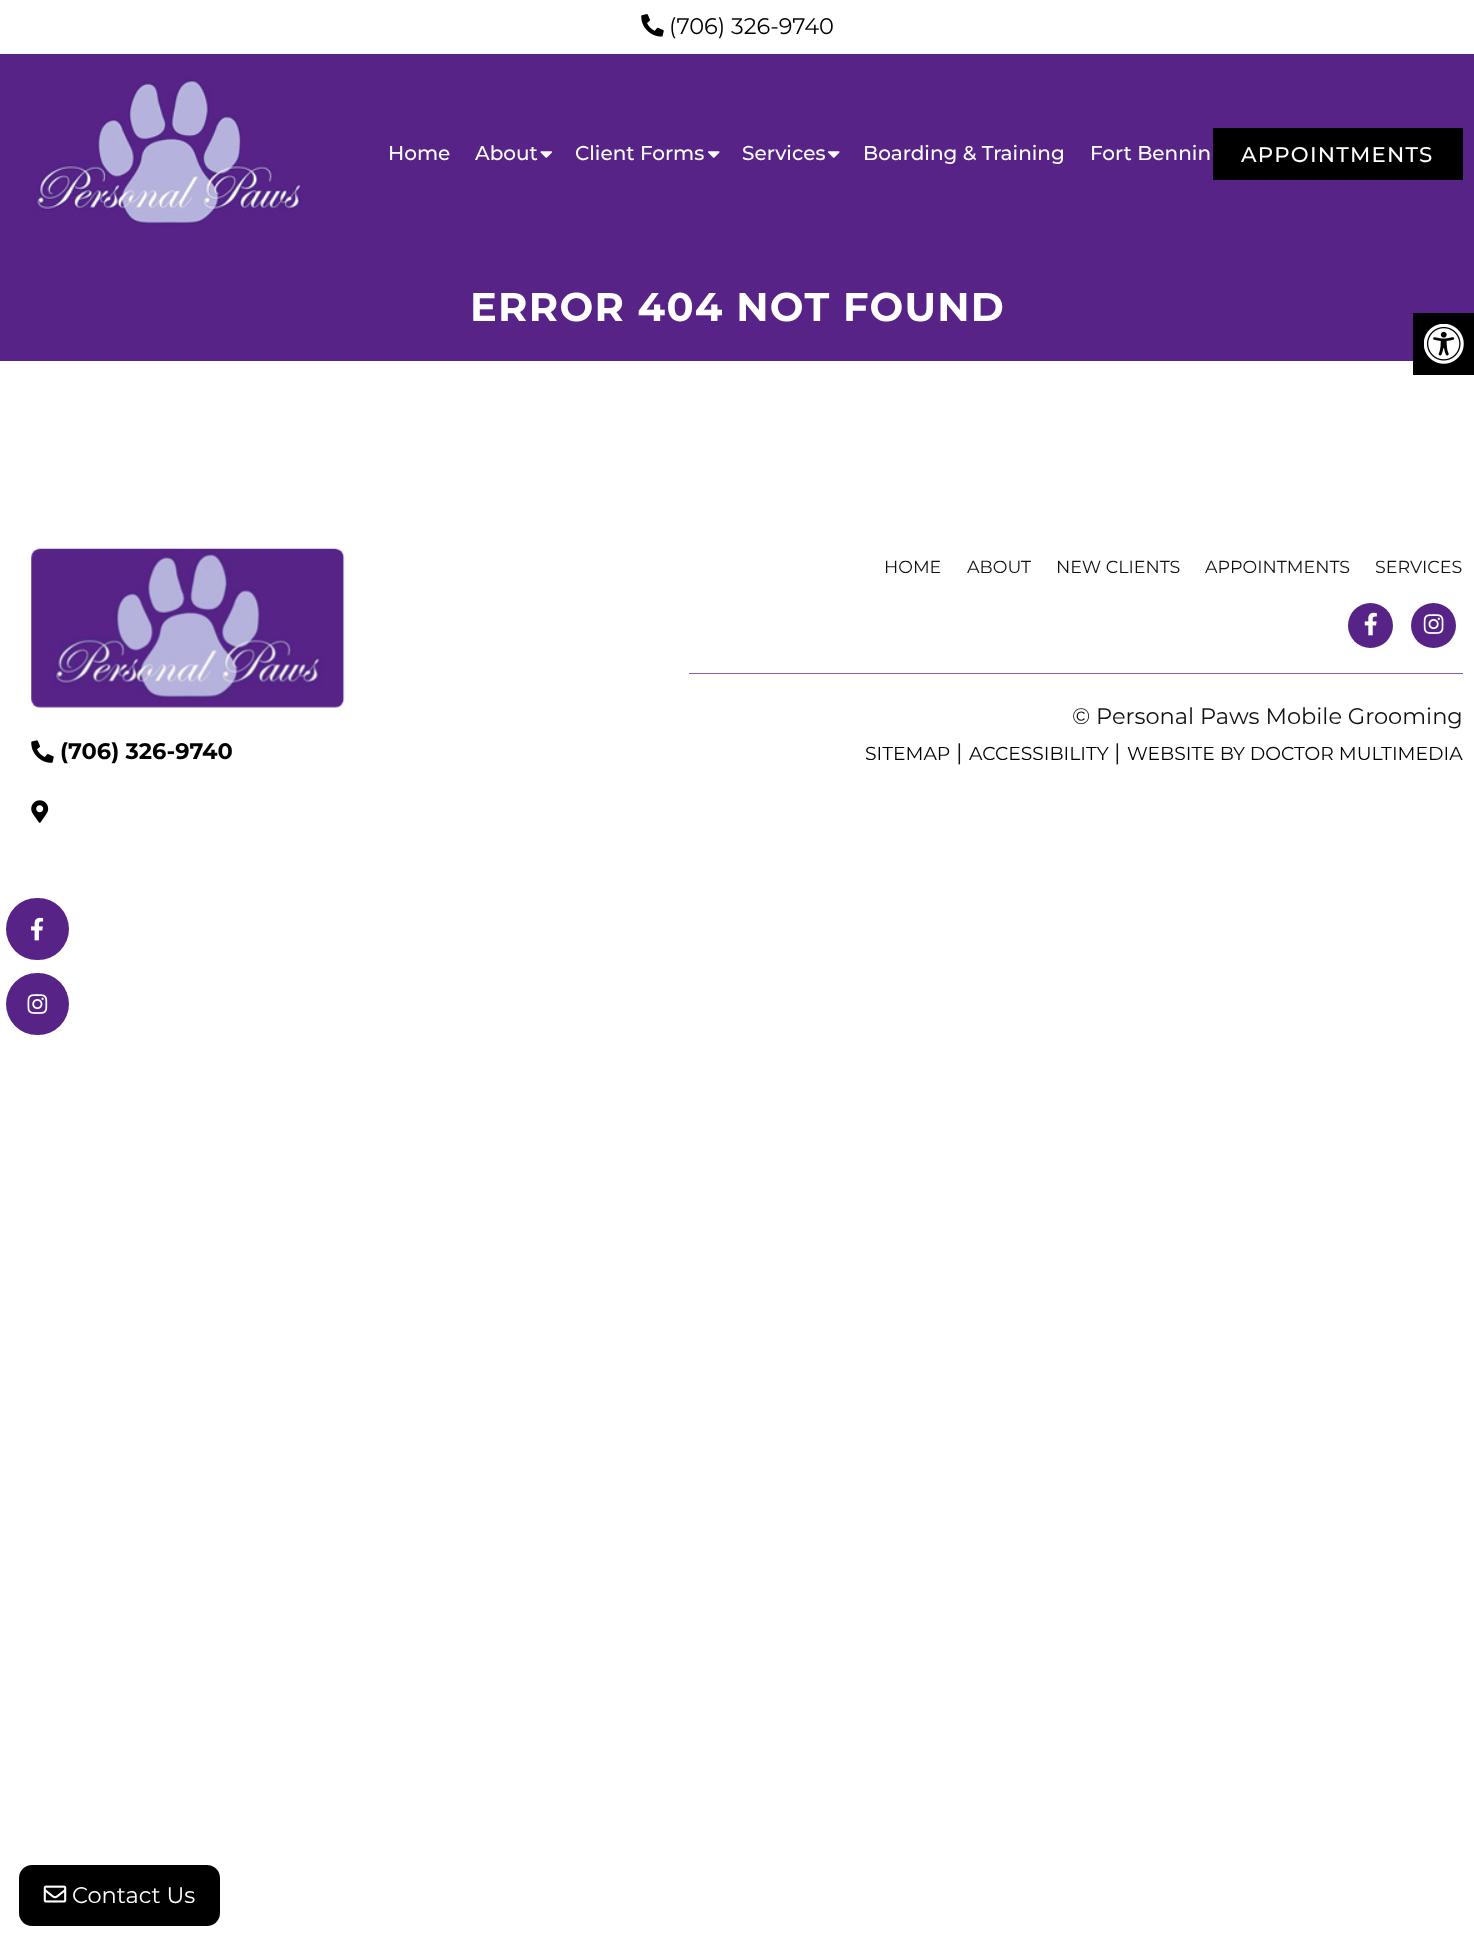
<?xml version="1.0" encoding="UTF-8"?>
<svg xmlns="http://www.w3.org/2000/svg" xmlns:xlink="http://www.w3.org/1999/xlink" width="1474" height="1945">
  <rect width="100%" height="100%" fill="#ffffff" />
  <image x="641" y="14" width="23" height="23" xlink:href="image1.png" />
  <rect y="54" width="1474" height="307" fill="#582387" />
  <image x="32" y="75" width="271" height="151" xlink:href="image2.png" />
  <image x="540" y="151" width="12" height="7" xlink:href="image3.png" />
  <image x="708" y="151" width="12" height="7" xlink:href="image4.png" />
  <image x="828" y="151" width="12" height="7" xlink:href="image4.png" />
  <rect x="1213" y="128" width="250" height="52" fill="#000000" />
  <rect x="6" y="898" width="63" height="62" rx="31" fill="#582387" />
  <image x="31" y="917" width="13" height="24" xlink:href="image5.png" />
  <rect x="6" y="973" width="63" height="62" rx="31" fill="#582387" />
  <image x="27" y="994" width="21" height="20" xlink:href="image6.png" />
  <image x="31" y="548" width="314" height="160" xlink:href="image7.png" />
  <image x="31" y="740" width="23" height="23" xlink:href="image8.png" />
  <image x="31" y="800" width="18" height="23" xlink:href="image9.png" />
  <circle cx="1370.5" cy="625.5" r="22.5" fill="#582387" />
  <image x="1364" y="612" width="13" height="24" xlink:href="image10.png" />
  <circle cx="1433.5" cy="625.5" r="22.5" fill="#582387" />
  <image x="1423" y="614" width="21" height="20" xlink:href="image11.png" />
  <rect x="689" y="673" width="774" height="1" fill="#8463a2" />
  <rect x="19" y="1865" width="201" height="61" rx="13" fill="#000000" />
  <image x="43" y="1885" width="24" height="18" xlink:href="image12.png" />
  <rect x="1413" y="313" width="61" height="62" fill="#000000" />
  <image x="1424" y="324" width="40" height="40" xlink:href="image13.png" />
  <text x="669" y="34" style="font-family: Montserrat; font-size: 22.5px; fill: #000000">(706) 326-9740</text>
  <text x="388" y="160" style="font-family: Montserrat; font-size: 20px; font-weight: 500; fill: #ffffff">Home</text>
  <text x="475" y="160" style="font-family: Montserrat; font-size: 20px; font-weight: 500; fill: #ffffff">About</text>
  <text x="575" y="160" style="font-family: Montserrat; font-size: 20px; font-weight: 500; fill: #ffffff">Client Forms</text>
  <text x="742" y="160" style="font-family: Montserrat; font-size: 20px; font-weight: 500; fill: #ffffff">Services</text>
  <text x="863" y="160" style="font-family: Montserrat; font-size: 20px; font-weight: 500; fill: #ffffff">Boarding &amp; Training</text>
  <text x="1090" y="160" style="font-family: Montserrat; font-size: 20px; font-weight: 500; fill: #ffffff">Fort Bennin</text>
  <text x="1241" y="162" style="font-family: Montserrat; font-size: 21.25px; font-weight: 500; letter-spacing: 1.25px; fill: #ffffff">APPOINTMENTS</text>
  <text x="470" y="321" style="font-family: Montserrat; font-size: 40px; font-weight: bold; letter-spacing: 1.25px; fill: #ffffff">ERROR 404 NOT FOUND</text>
  <text x="60" y="759" style="font-family: Montserrat; font-size: 22.5px; font-weight: bold; fill: #000000">(706) 326-9740</text>
  <text x="884" y="573" style="font-family: Montserrat; font-size: 17.5px; fill: #111111">HOME</text>
  <text x="967" y="573" style="font-family: Montserrat; font-size: 17.5px; fill: #111111">ABOUT</text>
  <text x="1056" y="573" style="font-family: Montserrat; font-size: 17.5px; fill: #111111">NEW CLIENTS</text>
  <text x="1205" y="573" style="font-family: Montserrat; font-size: 17.5px; fill: #111111">APPOINTMENTS</text>
  <text x="1375" y="573" style="font-family: Montserrat; font-size: 17.5px; fill: #111111">SERVICES</text>
  <text x="1072" y="724" style="font-family: Montserrat; font-size: 22.5px; fill: #111111">© Personal Paws Mobile Grooming</text>
  <text x="865" y="760" style="font-family: Montserrat; font-size: 18.75px; fill: #000000">SITEMAP</text>
  <text x="956" y="760" style="font-family: Montserrat; font-size: 22.5px; fill: #111111">|</text>
  <text x="969" y="760" style="font-family: Montserrat; font-size: 18.75px; fill: #000000">ACCESSIBILITY</text>
  <text x="1114" y="760" style="font-family: Montserrat; font-size: 22.5px; fill: #111111">|</text>
  <text x="1127" y="760" style="font-family: Montserrat; font-size: 18.75px; fill: #000000">WEBSITE BY DOCTOR MULTIMEDIA</text>
  <text x="72" y="1903" style="font-family: Montserrat; font-size: 22.5px; fill: #ffffff">Contact Us</text>
</svg>
